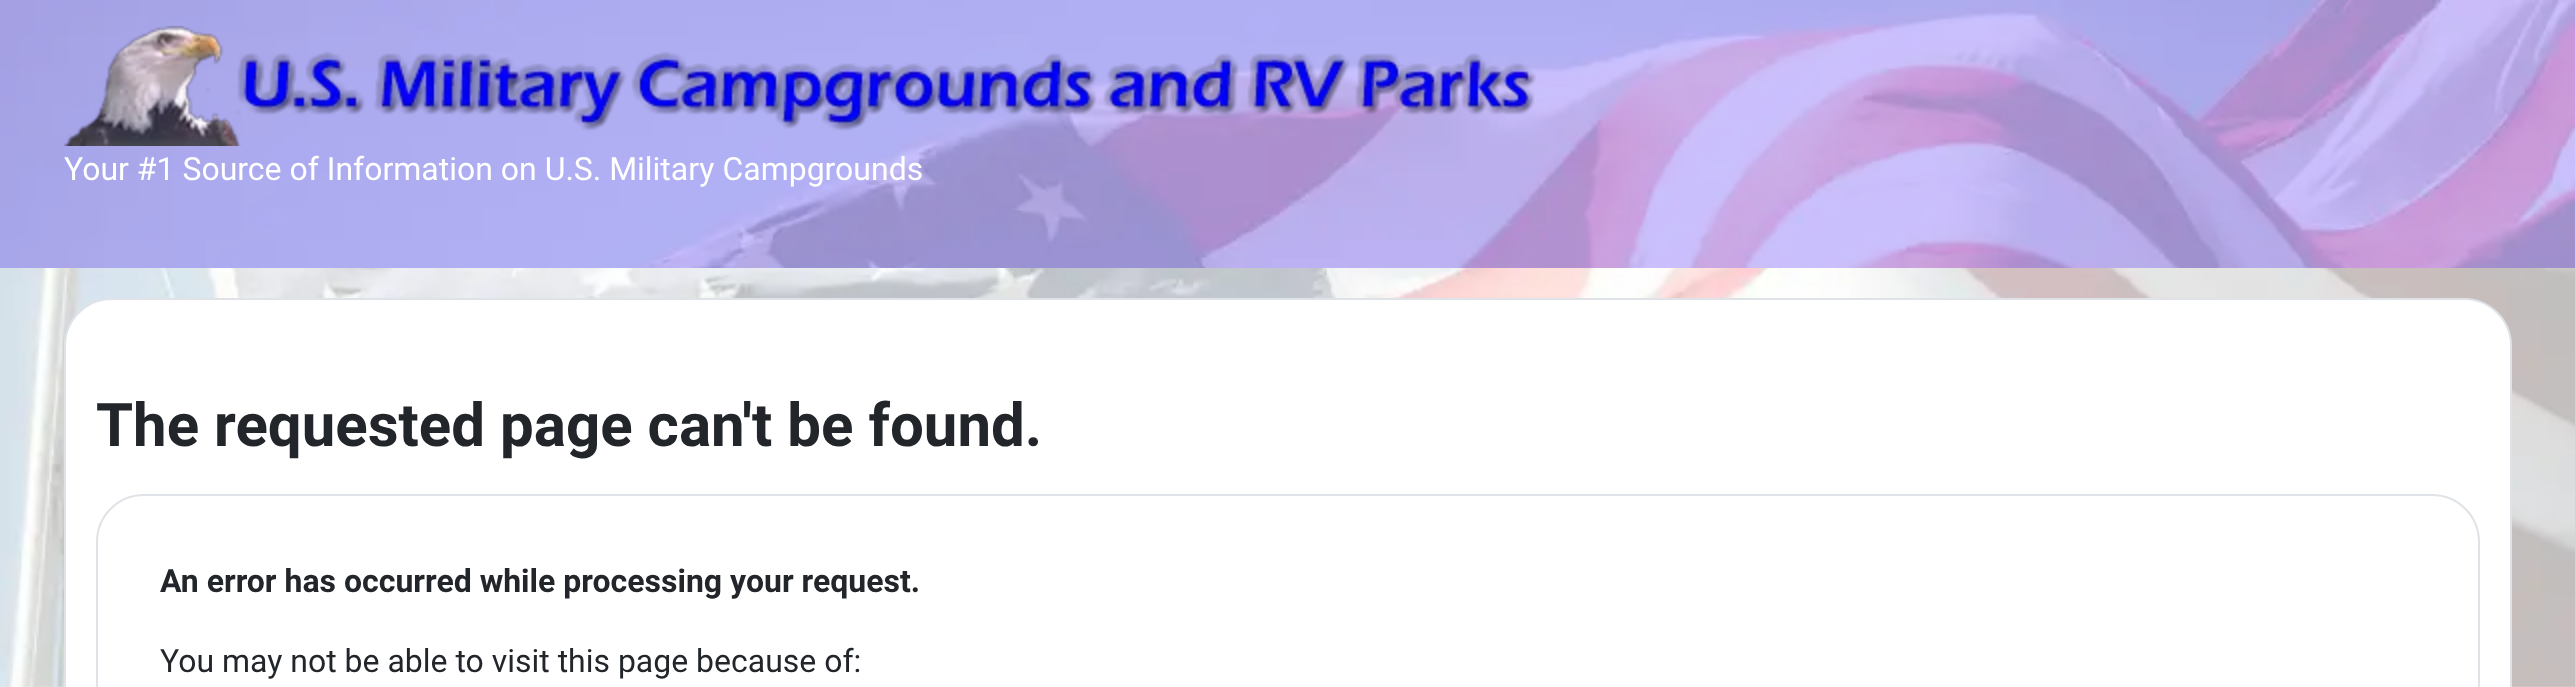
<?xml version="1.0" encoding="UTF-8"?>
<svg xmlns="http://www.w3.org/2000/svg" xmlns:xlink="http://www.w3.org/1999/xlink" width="2575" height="687">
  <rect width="100%" height="100%" fill="#ffffff" />
  <image x="0" y="268" width="2575" height="419" xlink:href="image1.png" />
  <image x="0" y="0" width="2575" height="268" xlink:href="image2.png" />
  <image x="64" y="26" width="1472" height="120" xlink:href="image3.png" />
  <rect x="65" y="299" width="2446" height="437" rx="47" fill="#ffffff" stroke="#dfe3e7" stroke-width="2" />
  <rect x="97" y="495" width="2382" height="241" rx="47" fill="none" stroke="#dfe3e7" stroke-width="2" />
  <text x="64" y="180" style="font-family: Roboto; font-size: 32px; fill: #ffffff">Your #1 Source of Information on U.S. Military Campgrounds</text>
  <text x="96" y="446" style="font-family: Roboto; font-size: 60px; font-weight: bold; fill: #22262a">The requested page can't be found.</text>
  <text x="160" y="592" style="font-family: Roboto; font-size: 32px; font-weight: bold; fill: #22262a">An error has occurred while processing your request.</text>
  <text x="160" y="672" style="font-family: Roboto; font-size: 32px; fill: #22262a">You may not be able to visit this page because of:</text>
</svg>
